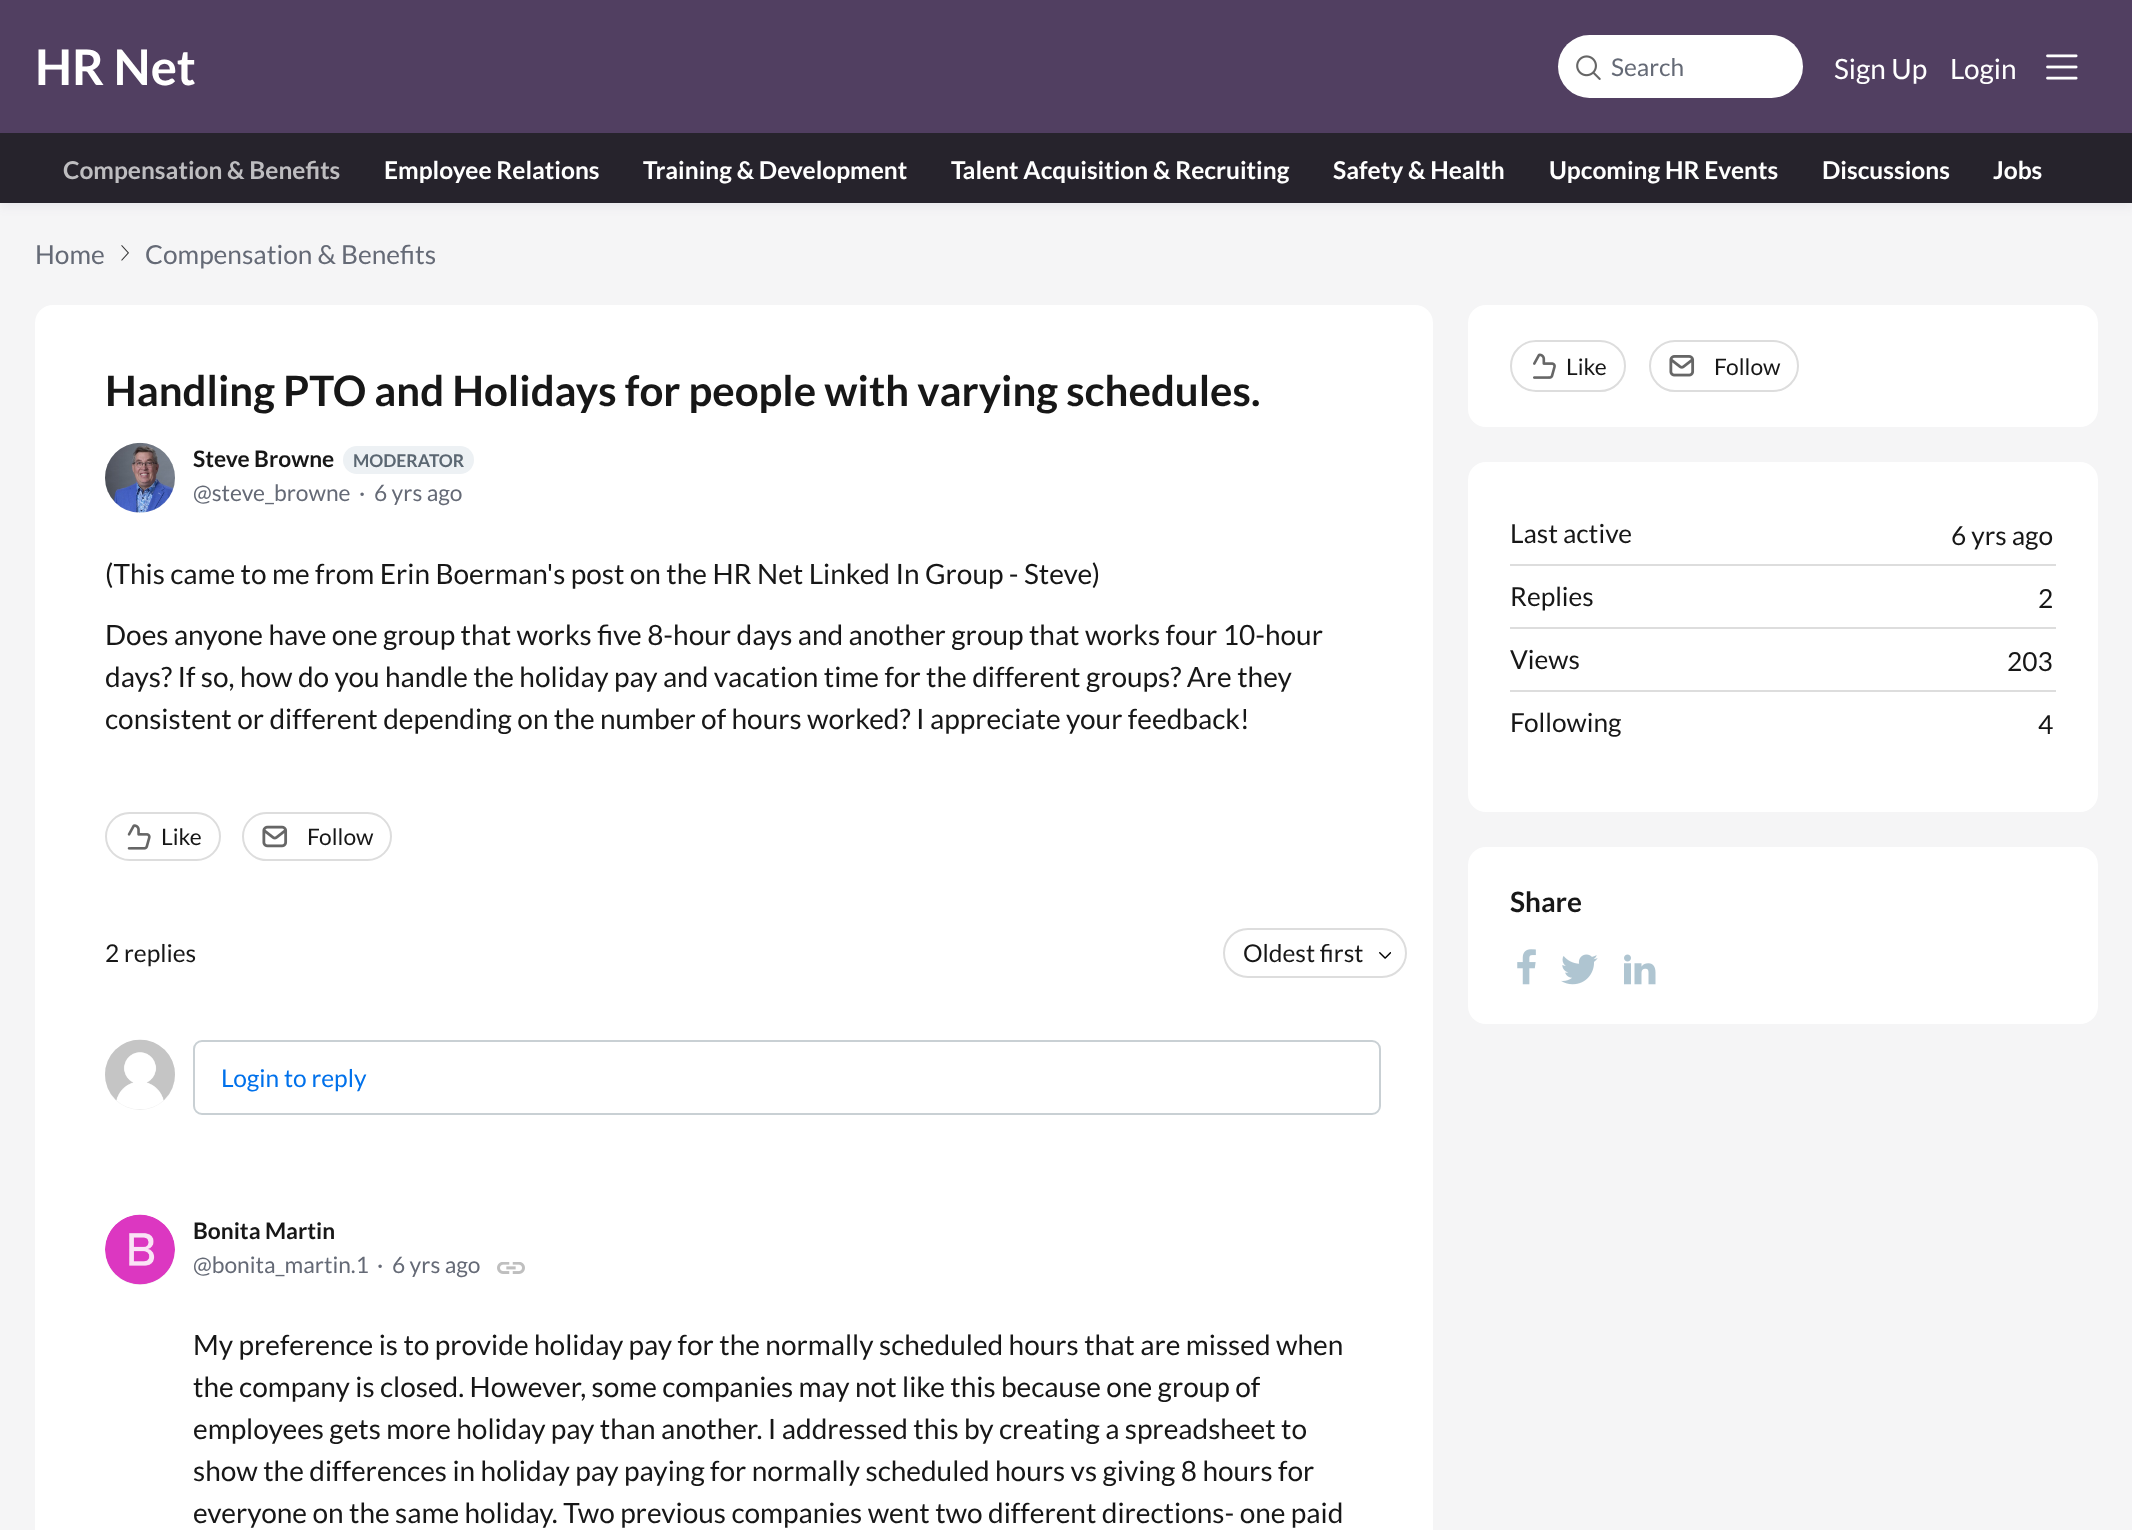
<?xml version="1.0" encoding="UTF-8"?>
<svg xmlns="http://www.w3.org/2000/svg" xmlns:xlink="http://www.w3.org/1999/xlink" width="2132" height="1530">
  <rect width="100%" height="100%" fill="#f5f5f6" />
  <rect width="2132" height="133" fill="#513f61" />
  <rect x="1558" y="35" width="245" height="63" rx="31.5" fill="#ffffff" />
  <image x="1576" y="55" width="25" height="25" xlink:href="image1.png" />
  <image x="2046" y="54" width="32" height="26" xlink:href="image2.png" />
  <rect y="138" width="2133" height="70" fill="#3e396b" fill-opacity="0.06" filter="blur(5px)" />
  <rect y="133" width="2132" height="70" fill="#26232c" />
  <image x="121" y="245" width="8" height="16" xlink:href="image3.png" />
  <rect x="35" y="305" width="1398" height="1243" rx="18" fill="#ffffff" />
  <circle cx="140" cy="478" r="35" fill="#efefef" />
  <image x="105" y="442" width="70" height="71" xlink:href="image4.png" />
  <rect x="343" y="446" width="131" height="28" rx="14" fill="#edf1f4" />
  <rect x="106" y="813" width="114" height="47" rx="23.5" fill="none" stroke="#dddddd" stroke-width="2" />
  <image x="127" y="824" width="24" height="26" xlink:href="image5.png" />
  <rect x="243" y="813" width="148" height="47" rx="23.5" fill="none" stroke="#dddddd" stroke-width="2" />
  <image x="262" y="825" width="26" height="23" xlink:href="image6.png" />
  <rect x="1224" y="929" width="182" height="48" rx="24" fill="none" stroke="#dddddd" stroke-width="2" />
  <image x="1379" y="952" width="12" height="7" xlink:href="image7.png" />
  <circle cx="140" cy="1075" r="35" fill="#efefef" />
  <image x="105" y="1039" width="70" height="70" xlink:href="image8.png" />
  <rect x="194" y="1041" width="1186" height="73" rx="8" fill="none" stroke="#c9d0d4" stroke-width="2" />
  <circle cx="140" cy="1250" r="35" fill="#efefef" />
  <image x="105" y="1214" width="70" height="71" xlink:href="image9.png" />
  <image x="497" y="1262" width="28" height="12" xlink:href="image10.png" />
  <rect x="1468" y="305" width="630" height="122" rx="18" fill="#ffffff" />
  <rect x="1511" y="341" width="114" height="50" rx="25" fill="none" stroke="#dddddd" stroke-width="2" />
  <image x="1533" y="353" width="23" height="26" xlink:href="image11.png" />
  <rect x="1650" y="341" width="148" height="50" rx="25" fill="none" stroke="#dddddd" stroke-width="2" />
  <image x="1669" y="355" width="26" height="22" xlink:href="image12.png" />
  <rect x="1468" y="462" width="630" height="350" rx="18" fill="#ffffff" />
  <rect x="1510" y="564" width="546" height="2" fill="#dddddd" />
  <rect x="1510" y="627" width="546" height="2" fill="#dddddd" />
  <rect x="1510" y="690" width="546" height="2" fill="#dddddd" />
  <rect x="1468" y="847" width="630" height="177" rx="18" fill="#ffffff" />
  <image x="1517" y="949" width="19" height="36" xlink:href="image13.png" />
  <image x="1561" y="954" width="37" height="31" xlink:href="image14.png" />
  <image x="1624" y="954" width="32" height="31" xlink:href="image15.png" />
  <text x="35" y="85" style="font-family: Lato; font-size: 49px; font-weight: bold; fill: #ffffff">HR Net</text>
  <text x="1611" y="76" style="font-family: Lato; font-size: 24.5px; fill: #656a76">Search</text>
  <text x="1834" y="79" style="font-family: Lato; font-size: 28px; fill: #ffffff">Sign Up</text>
  <text x="1950" y="79" style="font-family: Lato; font-size: 28px; fill: #ffffff">Login</text>
  <text x="63" y="179" style="font-family: Lato; font-size: 24.5px; font-weight: bold; fill: #bebdc0">Compensation &amp; Benefits</text>
  <text x="384" y="179" style="font-family: Lato; font-size: 24.5px; font-weight: bold; fill: #ffffff">Employee Relations</text>
  <text x="643" y="179" style="font-family: Lato; font-size: 24.5px; font-weight: bold; fill: #ffffff">Training &amp; Development</text>
  <text x="951" y="179" style="font-family: Lato; font-size: 24.5px; font-weight: bold; fill: #ffffff">Talent Acquisition &amp; Recruiting</text>
  <text x="1333" y="179" style="font-family: Lato; font-size: 24.5px; font-weight: bold; fill: #ffffff">Safety &amp; Health</text>
  <text x="1549" y="179" style="font-family: Lato; font-size: 24.5px; font-weight: bold; fill: #ffffff">Upcoming HR Events</text>
  <text x="1822" y="179" style="font-family: Lato; font-size: 24.5px; font-weight: bold; fill: #ffffff">Discussions</text>
  <text x="1993" y="179" style="font-family: Lato; font-size: 24.5px; font-weight: bold; fill: #ffffff">Jobs</text>
  <text x="35" y="264" style="font-family: Lato; font-size: 26.25px; fill: #656a76">Home</text>
  <text x="145" y="264" style="font-family: Lato; font-size: 26.25px; fill: #656a76">Compensation &amp; Benefits</text>
  <text x="105" y="406" style="font-family: Lato; font-size: 42px; font-weight: bold; fill: #171717">Handling PTO and Holidays for people with varying schedules.</text>
  <text x="193" y="467" style="font-family: Lato; font-size: 22.75px; font-weight: bold; fill: #171717">Steve Browne</text>
  <text x="353" y="467" style="font-family: Lato; font-size: 17.5px; font-weight: bold; fill: #5b6772">MODERATOR</text>
  <text x="193" y="501" style="font-family: Lato; font-size: 22.75px; fill: #656a76">@steve_browne</text>
  <text x="359" y="501" style="font-family: Lato; font-size: 22.75px; fill: #656a76">·</text>
  <text x="374" y="501" style="font-family: Lato; font-size: 22.75px; fill: #656a76">6 yrs ago</text>
  <text x="105" y="584" style="font-family: Lato; font-size: 28px; fill: #171717">(This came to me from Erin Boerman's post on the HR Net Linked In Group - Steve)</text>
  <text x="105" y="645" style="font-family: Lato; font-size: 28px; fill: #171717">Does anyone have one group that works five 8-hour days and another group that works four 10-hour</text>
  <text x="105" y="687" style="font-family: Lato; font-size: 28px; fill: #171717">days? If so, how do you handle the holiday pay and vacation time for the different groups? Are they</text>
  <text x="105" y="729" style="font-family: Lato; font-size: 28px; fill: #171717">consistent or different depending on the number of hours worked? I appreciate your feedback!</text>
  <text x="161" y="845" style="font-family: Lato; font-size: 22.75px; fill: #171717">Like</text>
  <text x="307" y="845" style="font-family: Lato; font-size: 22.75px; fill: #171717">Follow</text>
  <text x="105" y="962" style="font-family: Lato; font-size: 24.5px; fill: #171717">2 replies</text>
  <text x="1243" y="962" style="font-family: Lato; font-size: 24.5px; fill: #171717">Oldest first</text>
  <text x="221" y="1087" style="font-family: Lato; font-size: 24.5px; fill: #0071eb">Login to reply</text>
  <text x="193" y="1239" style="font-family: Lato; font-size: 22.75px; font-weight: bold; fill: #171717">Bonita Martin</text>
  <text x="193" y="1273" style="font-family: Lato; font-size: 22.75px; fill: #656a76">@bonita_martin.1</text>
  <text x="377" y="1273" style="font-family: Lato; font-size: 22.75px; fill: #656a76">·</text>
  <text x="392" y="1273" style="font-family: Lato; font-size: 22.75px; fill: #656a76">6 yrs ago</text>
  <text x="193" y="1355" style="font-family: Lato; font-size: 28px; fill: #171717">My preference is to provide holiday pay for the normally scheduled hours that are missed when</text>
  <text x="193" y="1397" style="font-family: Lato; font-size: 28px; fill: #171717">the company is closed. However, some companies may not like this because one group of</text>
  <text x="193" y="1439" style="font-family: Lato; font-size: 28px; fill: #171717">employees gets more holiday pay than another. I addressed this by creating a spreadsheet to</text>
  <text x="193" y="1481" style="font-family: Lato; font-size: 28px; fill: #171717">show the differences in holiday pay paying for normally scheduled hours vs giving 8 hours for</text>
  <text x="193" y="1523" style="font-family: Lato; font-size: 28px; fill: #171717">everyone on the same holiday. Two previous companies went two different directions- one paid</text>
  <text x="1566" y="375" style="font-family: Lato; font-size: 22.75px; fill: #171717">Like</text>
  <text x="1714" y="375" style="font-family: Lato; font-size: 22.75px; fill: #171717">Follow</text>
  <text x="1510" y="543" style="font-family: Lato; font-size: 26.25px; fill: #171717">Last active</text>
  <text x="1951" y="545" style="font-family: Lato; font-size: 26.25px; fill: #171717">6 yrs ago</text>
  <text x="1510" y="606" style="font-family: Lato; font-size: 26.25px; fill: #171717">Replies</text>
  <text x="2038" y="608" style="font-family: Lato; font-size: 26.25px; fill: #171717">2</text>
  <text x="1510" y="669" style="font-family: Lato; font-size: 26.25px; fill: #171717">Views</text>
  <text x="2007" y="671" style="font-family: Lato; font-size: 26.25px; fill: #171717">203</text>
  <text x="1510" y="732" style="font-family: Lato; font-size: 26.25px; fill: #171717">Following</text>
  <text x="2038" y="734" style="font-family: Lato; font-size: 26.25px; fill: #171717">4</text>
  <text x="1510" y="912" style="font-family: Lato; font-size: 28px; font-weight: bold; fill: #171717">Share</text>
</svg>
